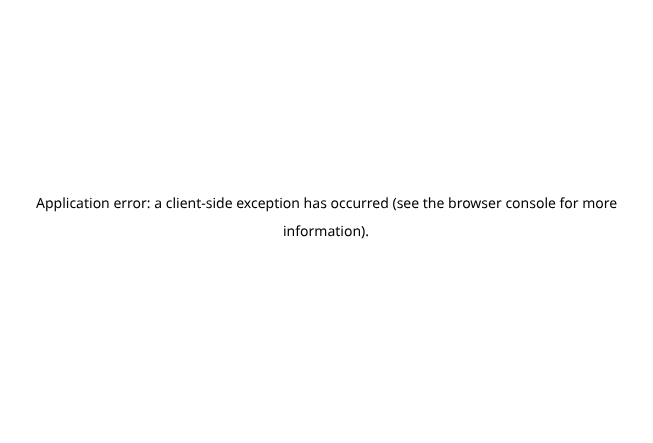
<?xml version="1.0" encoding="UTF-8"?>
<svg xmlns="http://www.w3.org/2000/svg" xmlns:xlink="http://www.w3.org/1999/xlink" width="653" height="443">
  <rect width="100%" height="100%" fill="#ffffff" />
  <text x="36" y="208" style="font-family: Noto Sans; font-size: 14px; fill: #000000">Application error: a client-side exception has occurred (see the browser console for more</text>
  <text x="283" y="236" style="font-family: Noto Sans; font-size: 14px; fill: #000000">information).</text>
</svg>
